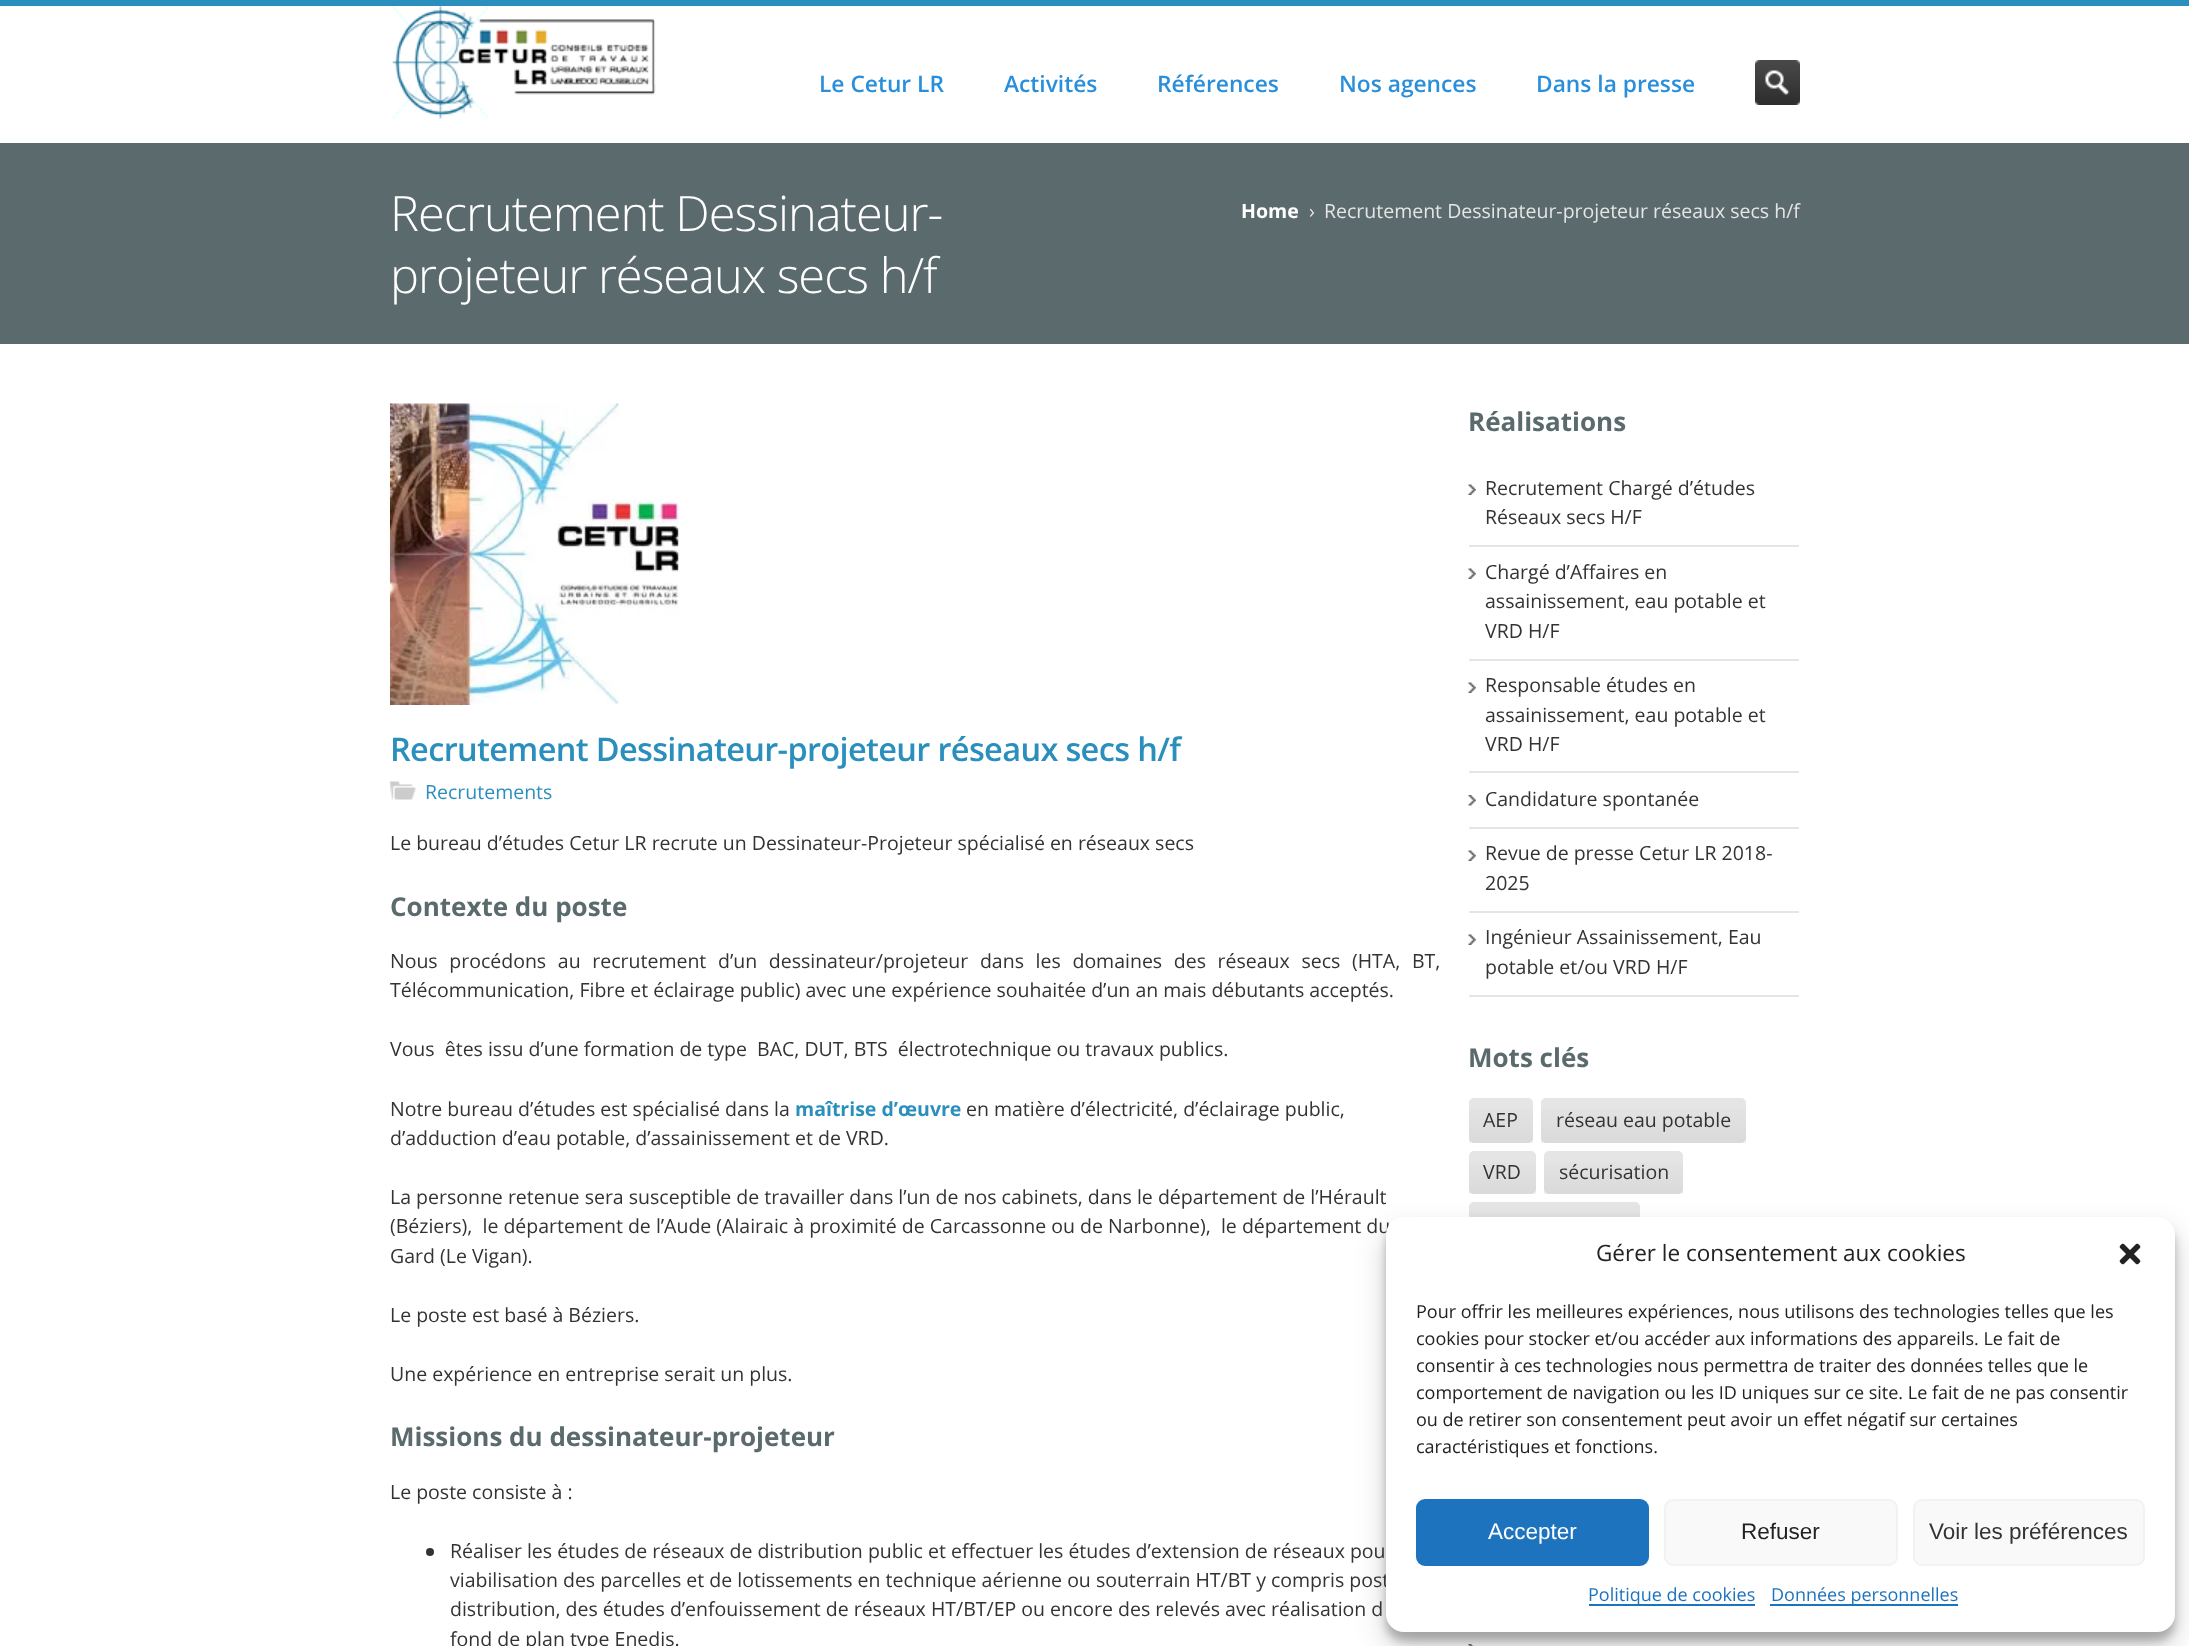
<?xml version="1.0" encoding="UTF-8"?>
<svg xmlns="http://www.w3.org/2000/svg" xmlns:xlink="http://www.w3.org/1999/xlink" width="2189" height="1646">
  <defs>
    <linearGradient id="g1" gradientUnits="userSpaceOnUse" x1="1501" y1="1098" x2="1501" y2="1143"><stop offset="0" stop-color="#ffffff" stop-opacity="0.05" /><stop offset="1" stop-color="#000000" stop-opacity="0.05" /></linearGradient>
    <linearGradient id="g2" gradientUnits="userSpaceOnUse" x1="1643" y1="1098" x2="1643" y2="1143"><stop offset="0" stop-color="#ffffff" stop-opacity="0.05" /><stop offset="1" stop-color="#000000" stop-opacity="0.05" /></linearGradient>
    <linearGradient id="g3" gradientUnits="userSpaceOnUse" x1="1502" y1="1151" x2="1502" y2="1194"><stop offset="0" stop-color="#ffffff" stop-opacity="0.05" /><stop offset="1" stop-color="#000000" stop-opacity="0.05" /></linearGradient>
    <linearGradient id="g4" gradientUnits="userSpaceOnUse" x1="1613" y1="1151" x2="1613" y2="1194"><stop offset="0" stop-color="#ffffff" stop-opacity="0.05" /><stop offset="1" stop-color="#000000" stop-opacity="0.05" /></linearGradient>
    <linearGradient id="g5" gradientUnits="userSpaceOnUse" x1="1554" y1="1202" x2="1554" y2="1247"><stop offset="0" stop-color="#ffffff" stop-opacity="0.05" /><stop offset="1" stop-color="#000000" stop-opacity="0.05" /></linearGradient>
  </defs>
  <rect width="100%" height="100%" fill="#ffffff" />
  <rect width="2189" height="6" fill="#2a8fbd" />
  <image x="391" y="6" width="265" height="113" xlink:href="image1.png" />
  <image x="1755" y="60" width="45" height="45" xlink:href="image2.png" />
  <rect y="143" width="2189" height="201" fill="#5b6a6d" />
  <image x="390" y="403" width="290" height="302" xlink:href="image3.png" />
  <image x="390" y="781" width="26" height="19" xlink:href="image4.png" />
  <circle cx="430" cy="1552" r="4" fill="#333333" />
  <rect x="1469" y="545" width="330" height="2" fill="#e5e5e5" />
  <image x="1468" y="484" width="8" height="11" xlink:href="image5.png" />
  <rect x="1469" y="659" width="330" height="2" fill="#e5e5e5" />
  <image x="1468" y="568" width="8" height="11" xlink:href="image5.png" />
  <rect x="1469" y="771" width="330" height="2" fill="#e5e5e5" />
  <image x="1468" y="682" width="8" height="11" xlink:href="image5.png" />
  <rect x="1469" y="827" width="330" height="2" fill="#e5e5e5" />
  <image x="1468" y="795" width="8" height="11" xlink:href="image6.png" />
  <rect x="1469" y="911" width="330" height="2" fill="#e5e5e5" />
  <image x="1468" y="850" width="8" height="11" xlink:href="image5.png" />
  <rect x="1469" y="995" width="330" height="2" fill="#e5e5e5" />
  <image x="1468" y="934" width="8" height="11" xlink:href="image5.png" />
  <rect x="1469" y="1098" width="64" height="45" rx="5" fill="#e5e5e5" />
  <rect x="1469" y="1109" width="64" height="34" fill="url(#g1)" />
  <rect x="1541" y="1098" width="205" height="45" rx="5" fill="#e5e5e5" />
  <rect x="1541" y="1109" width="205" height="34" fill="url(#g2)" />
  <rect x="1469" y="1151" width="67" height="43" rx="5" fill="#e5e5e5" />
  <rect x="1469" y="1162" width="67" height="32" fill="url(#g3)" />
  <rect x="1544" y="1151" width="139" height="43" rx="5" fill="#e5e5e5" />
  <rect x="1544" y="1162" width="139" height="32" fill="url(#g4)" />
  <rect x="1469" y="1202" width="171" height="45" rx="5" fill="#e5e5e5" />
  <rect x="1469" y="1213" width="171" height="4" fill="url(#g5)" />
  <image x="1468" y="1644" width="6" height="2" xlink:href="image7.png" />
  <rect x="1386" y="1226" width="789" height="415" rx="18" fill="#000000" fill-opacity="0.23" filter="blur(4.5px)" />
  <rect x="1386" y="1232" width="789" height="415" rx="18" fill="#000000" fill-opacity="0.19" filter="blur(15px)" />
  <text x="819" y="92" style="font-family: Open Sans; font-size: 22.75px; font-weight: 600; fill: #2a8fdb">Le Cetur LR</text>
  <text x="1004" y="92" style="font-family: Open Sans; font-size: 22.75px; font-weight: 600; fill: #2a8fdb">Activités</text>
  <text x="1157" y="92" style="font-family: Open Sans; font-size: 22.75px; font-weight: 600; fill: #2a8fdb">Références</text>
  <text x="1339" y="92" style="font-family: Open Sans; font-size: 22.75px; font-weight: 600; fill: #2a8fdb">Nos agences</text>
  <text x="1536" y="92" style="font-family: Open Sans; font-size: 22.75px; font-weight: 600; fill: #2a8fdb">Dans la presse</text>
  <text x="390" y="231" style="font-family: Open Sans; font-size: 48.75px; font-weight: 300; letter-spacing: -1px; fill: #ffffff">Recrutement Dessinateur-</text>
  <text x="390" y="293" style="font-family: Open Sans; font-size: 48.75px; font-weight: 300; letter-spacing: -1px; fill: #ffffff">projeteur réseaux secs h/f</text>
  <text x="1241" y="218" style="font-family: Open Sans; font-size: 19.5px; font-weight: bold; fill: #ffffff">Home</text>
  <text x="1309" y="218" style="font-family: Open Sans; font-size: 19.5px; fill: #e5e5e5">›</text>
  <text x="1324" y="218" style="font-family: Open Sans; font-size: 19.5px; fill: #e5e5e5">Recrutement Dessinateur-projeteur réseaux secs h/f</text>
  <text x="390" y="761" style="font-family: Open Sans; font-size: 32.5px; font-weight: 600; letter-spacing: -0.65px; fill: #2a8fbd">Recrutement Dessinateur-projeteur réseaux secs h/f</text>
  <text x="425" y="799" style="font-family: Open Sans; font-size: 19.5px; fill: #2a8fbd">Recrutements</text>
  <text x="390" y="850" style="font-family: Open Sans; font-size: 19.5px; fill: #333333">Le bureau d’études Cetur LR recrute un Dessinateur-Projeteur spécialisé en réseaux secs</text>
  <text x="390" y="916" style="font-family: Open Sans; font-size: 26px; font-weight: bold; fill: #5b6a6d">Contexte du poste</text>
  <text x="390" y="968" word-spacing="6.6" style="font-family: Open Sans; font-size: 19.5px; fill: #333333">Nous procédons au recrutement d’un dessinateur/projeteur dans les domaines des réseaux secs (HTA, BT,</text>
  <text x="390" y="997" style="font-family: Open Sans; font-size: 19.5px; fill: #333333">Télécommunication, Fibre et éclairage public) avec une expérience souhaitée d’un an mais débutants acceptés.</text>
  <text x="390" y="1056" style="font-family: Open Sans; font-size: 19.5px; fill: #333333" xml:space="preserve">Vous  êtes issu d’une formation de type  BAC, DUT, BTS  électrotechnique ou travaux publics.</text>
  <text x="390" y="1116" style="font-family: Open Sans; font-size: 19.5px; fill: #333333">Notre bureau d’études est spécialisé dans la</text>
  <text x="795" y="1116" style="font-family: Open Sans; font-size: 19.5px; font-weight: bold; fill: #2a8fbd">maîtrise d’œuvre</text>
  <text x="966" y="1116" style="font-family: Open Sans; font-size: 19.5px; fill: #333333">en matière d’électricité, d’éclairage public,</text>
  <text x="390" y="1145" style="font-family: Open Sans; font-size: 19.5px; fill: #333333">d’adduction d’eau potable, d’assainissement et de VRD.</text>
  <text x="390" y="1204" style="font-family: Open Sans; font-size: 19.5px; fill: #333333">La personne retenue sera susceptible de travailler dans l’un de nos cabinets, dans le département de l’Hérault</text>
  <text x="390" y="1233" style="font-family: Open Sans; font-size: 19.5px; fill: #333333" xml:space="preserve">(Béziers),  le département de l’Aude (Alairaic à proximité de Carcassonne ou de Narbonne),  le département du</text>
  <text x="390" y="1263" style="font-family: Open Sans; font-size: 19.5px; fill: #333333">Gard (Le Vigan).</text>
  <text x="390" y="1322" style="font-family: Open Sans; font-size: 19.5px; fill: #333333">Le poste est basé à Béziers.</text>
  <text x="390" y="1381" style="font-family: Open Sans; font-size: 19.5px; fill: #333333">Une expérience en entreprise serait un plus.</text>
  <text x="390" y="1446" style="font-family: Open Sans; font-size: 26px; font-weight: bold; fill: #5b6a6d">Missions du dessinateur-projeteur</text>
  <text x="390" y="1499" style="font-family: Open Sans; font-size: 19.5px; fill: #333333">Le poste consiste à :</text>
  <text x="450" y="1558" style="font-family: Open Sans; font-size: 19.5px; fill: #333333">Réaliser les études de réseaux de distribution public et effectuer les études d’extension de réseaux pou</text>
  <text x="450" y="1587" style="font-family: Open Sans; font-size: 19.5px; fill: #333333">viabilisation des parcelles et de lotissements en technique aérienne ou souterrain HT/BT y compris post</text>
  <text x="450" y="1616" style="font-family: Open Sans; font-size: 19.5px; fill: #333333">distribution, des études d’enfouissement de réseaux HT/BT/EP ou encore des relevés avec réalisation d</text>
  <text x="450" y="1646" style="font-family: Open Sans; font-size: 19.5px; fill: #333333">fond de plan type Enedis.</text>
  <text x="1468" y="431" style="font-family: Open Sans; font-size: 26px; font-weight: bold; fill: #5b6a6d">Réalisations</text>
  <text x="1485" y="495" style="font-family: Open Sans; font-size: 19.5px; fill: #333333">Recrutement Chargé d’études</text>
  <text x="1485" y="524" style="font-family: Open Sans; font-size: 19.5px; fill: #333333">Réseaux secs H/F</text>
  <text x="1485" y="579" style="font-family: Open Sans; font-size: 19.5px; fill: #333333">Chargé d’Affaires en</text>
  <text x="1485" y="608" style="font-family: Open Sans; font-size: 19.5px; fill: #333333">assainissement, eau potable et</text>
  <text x="1485" y="638" style="font-family: Open Sans; font-size: 19.5px; fill: #333333">VRD H/F</text>
  <text x="1485" y="692" style="font-family: Open Sans; font-size: 19.5px; fill: #333333">Responsable études en</text>
  <text x="1485" y="722" style="font-family: Open Sans; font-size: 19.5px; fill: #333333">assainissement, eau potable et</text>
  <text x="1485" y="751" style="font-family: Open Sans; font-size: 19.5px; fill: #333333">VRD H/F</text>
  <text x="1485" y="806" style="font-family: Open Sans; font-size: 19.5px; fill: #333333">Candidature spontanée</text>
  <text x="1485" y="860" style="font-family: Open Sans; font-size: 19.5px; fill: #333333">Revue de presse Cetur LR 2018-</text>
  <text x="1485" y="890" style="font-family: Open Sans; font-size: 19.5px; fill: #333333">2025</text>
  <text x="1485" y="944" style="font-family: Open Sans; font-size: 19.5px; fill: #333333">Ingénieur Assainissement, Eau</text>
  <text x="1485" y="974" style="font-family: Open Sans; font-size: 19.5px; fill: #333333">potable et/ou VRD H/F</text>
  <text x="1468" y="1067" style="font-family: Open Sans; font-size: 26px; font-weight: bold; fill: #5b6a6d">Mots clés</text>
  <text x="1483" y="1127" style="font-family: Open Sans; font-size: 19.5px; fill: #333333">AEP</text>
  <text x="1556" y="1127" style="font-family: Open Sans; font-size: 19.5px; fill: #333333">réseau eau potable</text>
  <text x="1483" y="1179" style="font-family: Open Sans; font-size: 19.5px; fill: #333333">VRD</text>
  <text x="1559" y="1179" style="font-family: Open Sans; font-size: 19.5px; fill: #333333">sécurisation</text>
  <rect x="1386" y="1217" width="789" height="415" rx="18" fill="#ffffff" />
  <text x="1596" y="1261" style="font-family: Open Sans; font-size: 22.5px; fill: #222222">Gérer le consentement aux cookies</text>
  <image x="2119" y="1243" width="22" height="22" xlink:href="image8.png" />
  <text x="1416" y="1318" style="font-family: Open Sans; font-size: 18px; fill: #222222">Pour offrir les meilleures expériences, nous utilisons des technologies telles que les</text>
  <text x="1416" y="1345" style="font-family: Open Sans; font-size: 18px; fill: #222222">cookies pour stocker et/ou accéder aux informations des appareils. Le fait de</text>
  <text x="1416" y="1372" style="font-family: Open Sans; font-size: 18px; fill: #222222">consentir à ces technologies nous permettra de traiter des données telles que le</text>
  <text x="1416" y="1399" style="font-family: Open Sans; font-size: 18px; fill: #222222">comportement de navigation ou les ID uniques sur ce site. Le fait de ne pas consentir</text>
  <text x="1416" y="1426" style="font-family: Open Sans; font-size: 18px; fill: #222222">ou de retirer son consentement peut avoir un effet négatif sur certaines</text>
  <text x="1416" y="1453" style="font-family: Open Sans; font-size: 18px; fill: #222222">caractéristiques et fonctions.</text>
  <rect x="1417" y="1500" width="231" height="65" rx="8" fill="#1e73be" stroke="#1e73be" stroke-width="2" />
  <text x="1488" y="1539" style="font-family: Liberation Sans; font-size: 22.5px; fill: #ffffff">Accepter</text>
  <rect x="1665" y="1500" width="232" height="65" rx="8" fill="#f9f9f9" stroke="#f2f2f2" stroke-width="2" />
  <text x="1741" y="1539" style="font-family: Liberation Sans; font-size: 22.5px; fill: #222222">Refuser</text>
  <rect x="1914" y="1500" width="230" height="65" rx="8" fill="#f9f9f9" stroke="#f2f2f2" stroke-width="2" />
  <text x="1929" y="1539" style="font-family: Liberation Sans; font-size: 22.5px; fill: #333333">Voir les préférences</text>
  <rect x="1589" y="1604" width="166" height="2" fill="#1e73be" />
  <text x="1588" y="1601" style="font-family: Open Sans; font-size: 18px; fill: #1e73be">Politique de cookies</text>
  <rect x="1770" y="1604" width="188" height="2" fill="#1e73be" />
  <text x="1771" y="1601" style="font-family: Open Sans; font-size: 18px; fill: #1e73be">Données personnelles</text>
</svg>
